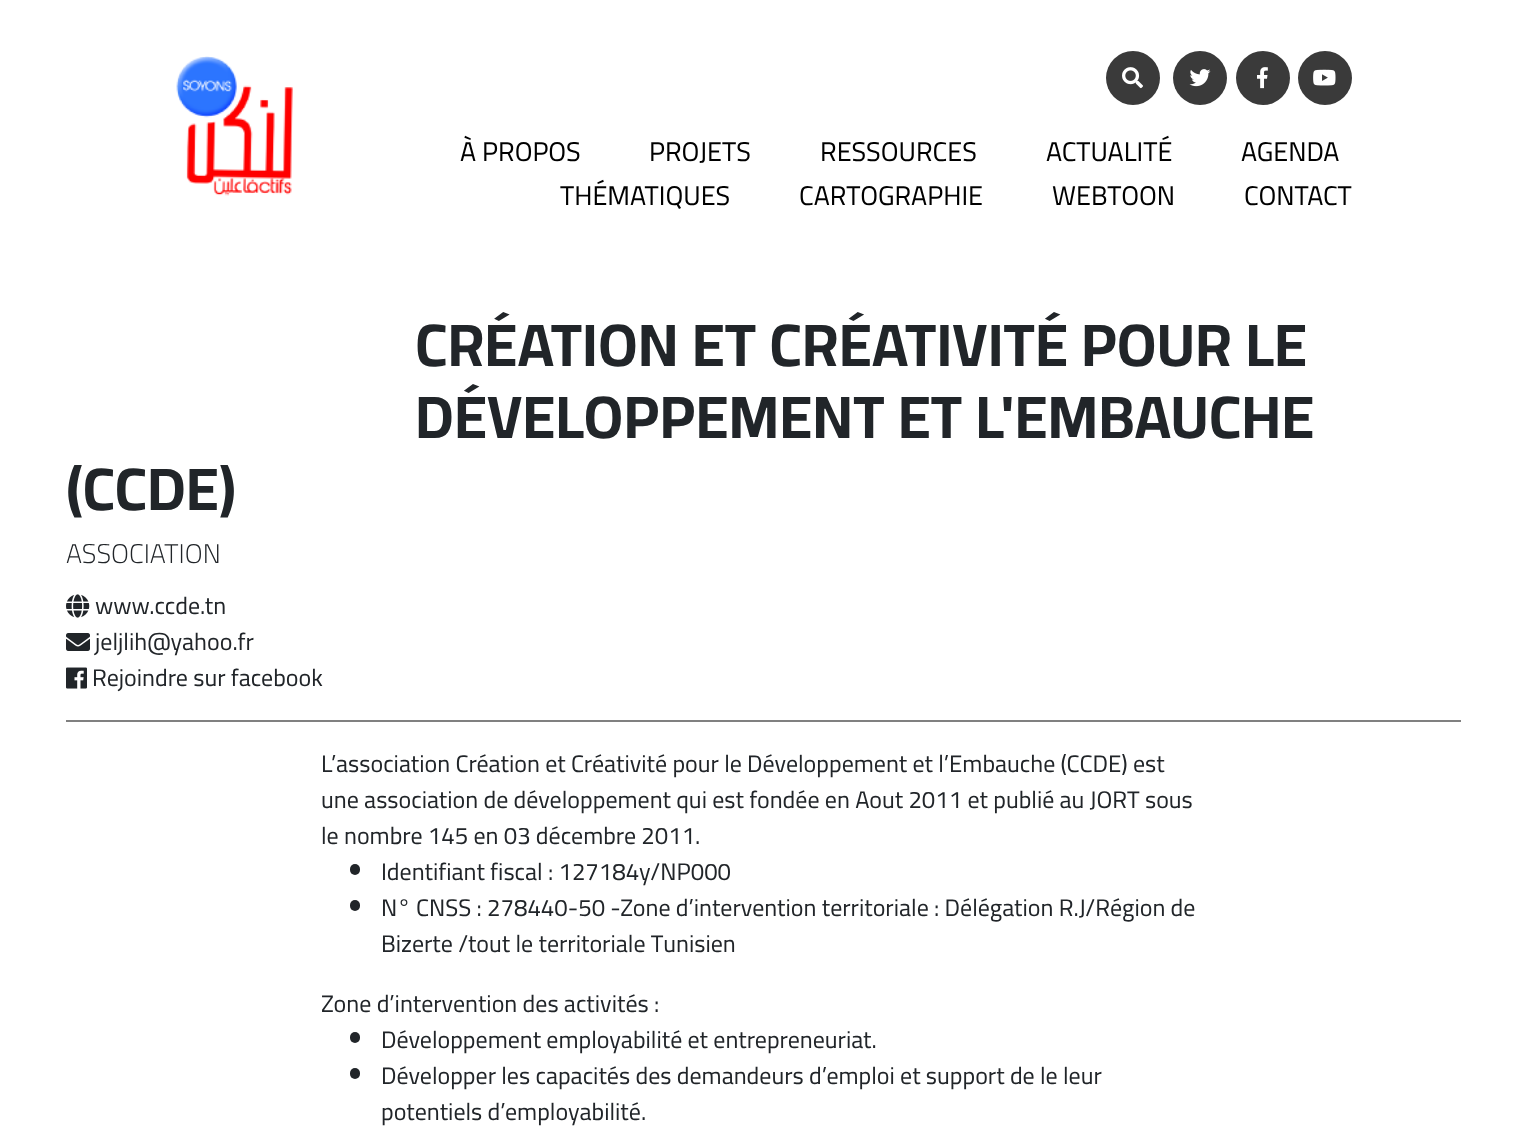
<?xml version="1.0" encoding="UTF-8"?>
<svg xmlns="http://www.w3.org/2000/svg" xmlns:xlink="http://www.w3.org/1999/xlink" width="1526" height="1138">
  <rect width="100%" height="100%" fill="#ffffff" />
  <image x="176" y="56" width="117" height="140" xlink:href="image1.png" />
  <circle cx="1133" cy="78" r="27" fill="#3a3a3a" />
  <image x="1122" y="67" width="21" height="22" xlink:href="image2.png" />
  <circle cx="1200" cy="78" r="27" fill="#3a3a3a" />
  <image x="1189" y="69" width="22" height="18" xlink:href="image3.png" />
  <circle cx="1263" cy="78" r="27" fill="#3a3a3a" />
  <image x="1257" y="67" width="11" height="22" xlink:href="image4.png" />
  <circle cx="1325" cy="78" r="27" fill="#3a3a3a" />
  <image x="1313" y="69" width="23" height="17" xlink:href="image5.png" />
  <image x="66" y="594" width="24" height="24" xlink:href="image6.png" />
  <image x="66" y="633" width="24" height="18" xlink:href="image7.png" />
  <image x="66" y="667" width="21" height="22" xlink:href="image8.png" />
  <rect x="66" y="720" width="1395" height="2" fill="#808080" />
  <rect x="350" y="864" width="10" height="11" rx="5" fill="#212529" />
  <rect x="350" y="900" width="10" height="11" rx="5" fill="#212529" />
  <rect x="350" y="1032" width="10" height="11" rx="5" fill="#212529" />
  <rect x="350" y="1068" width="10" height="11" rx="5" fill="#212529" />
  <text x="460" y="161" style="font-family: Cairo; font-size: 27px; fill: #000000">À PROPOS</text>
  <text x="649" y="161" style="font-family: Cairo; font-size: 27px; fill: #000000">PROJETS</text>
  <text x="820" y="161" style="font-family: Cairo; font-size: 27px; fill: #000000">RESSOURCES</text>
  <text x="1046" y="161" style="font-family: Cairo; font-size: 27px; fill: #000000">ACTUALITÉ</text>
  <text x="1241" y="161" style="font-family: Cairo; font-size: 27px; fill: #000000">AGENDA</text>
  <text x="560" y="205" style="font-family: Cairo; font-size: 27px; fill: #000000">THÉMATIQUES</text>
  <text x="799" y="205" style="font-family: Cairo; font-size: 27px; fill: #000000">CARTOGRAPHIE</text>
  <text x="1052" y="205" style="font-family: Cairo; font-size: 27px; fill: #000000">WEBTOON</text>
  <text x="1244" y="205" style="font-family: Cairo; font-size: 27px; fill: #000000">CONTACT</text>
  <text x="415" y="366" style="font-family: Cairo; font-size: 60px; font-weight: bold; fill: #212529">CRÉATION ET CRÉATIVITÉ POUR LE</text>
  <text x="415" y="438" style="font-family: Cairo; font-size: 60px; font-weight: bold; fill: #212529">DÉVELOPPEMENT ET L'EMBAUCHE</text>
  <text x="66" y="510" style="font-family: Cairo; font-size: 60px; font-weight: bold; fill: #212529">(CCDE)</text>
  <text x="66" y="563" style="font-family: Cairo; font-size: 27px; font-weight: 300; fill: #212529">ASSOCIATION</text>
  <text x="95" y="614" style="font-family: Cairo; font-size: 24px; fill: #212529">www.ccde.tn</text>
  <text x="95" y="650" style="font-family: Cairo; font-size: 24px; fill: #212529">jeljlih@yahoo.fr</text>
  <text x="92" y="686" style="font-family: Cairo; font-size: 24px; fill: #212529">Rejoindre sur facebook</text>
  <text x="321" y="772" style="font-family: Cairo; font-size: 24px; fill: #212529">L’association Création et Créativité pour le Développement et l’Embauche (CCDE) est</text>
  <text x="321" y="808" style="font-family: Cairo; font-size: 24px; fill: #212529">une association de développement qui est fondée en Aout 2011 et publié au JORT sous</text>
  <text x="321" y="844" style="font-family: Cairo; font-size: 24px; fill: #212529">le nombre 145 en 03 décembre 2011.</text>
  <text x="381" y="880" style="font-family: Cairo; font-size: 24px; fill: #212529">Identifiant fiscal : 127184y/NP000</text>
  <text x="381" y="916" style="font-family: Cairo; font-size: 24px; fill: #212529">N° CNSS : 278440-50 -Zone d’intervention territoriale : Délégation R.J/Région de</text>
  <text x="381" y="952" style="font-family: Cairo; font-size: 24px; fill: #212529">Bizerte /tout le territoriale Tunisien</text>
  <text x="321" y="1012" style="font-family: Cairo; font-size: 24px; fill: #212529">Zone d’intervention des activités :</text>
  <text x="381" y="1048" style="font-family: Cairo; font-size: 24px; fill: #212529">Développement employabilité et entrepreneuriat.</text>
  <text x="381" y="1084" style="font-family: Cairo; font-size: 24px; fill: #212529">Développer les capacités des demandeurs d’emploi et support de le leur</text>
  <text x="381" y="1120" style="font-family: Cairo; font-size: 24px; fill: #212529">potentiels d’employabilité.</text>
</svg>
